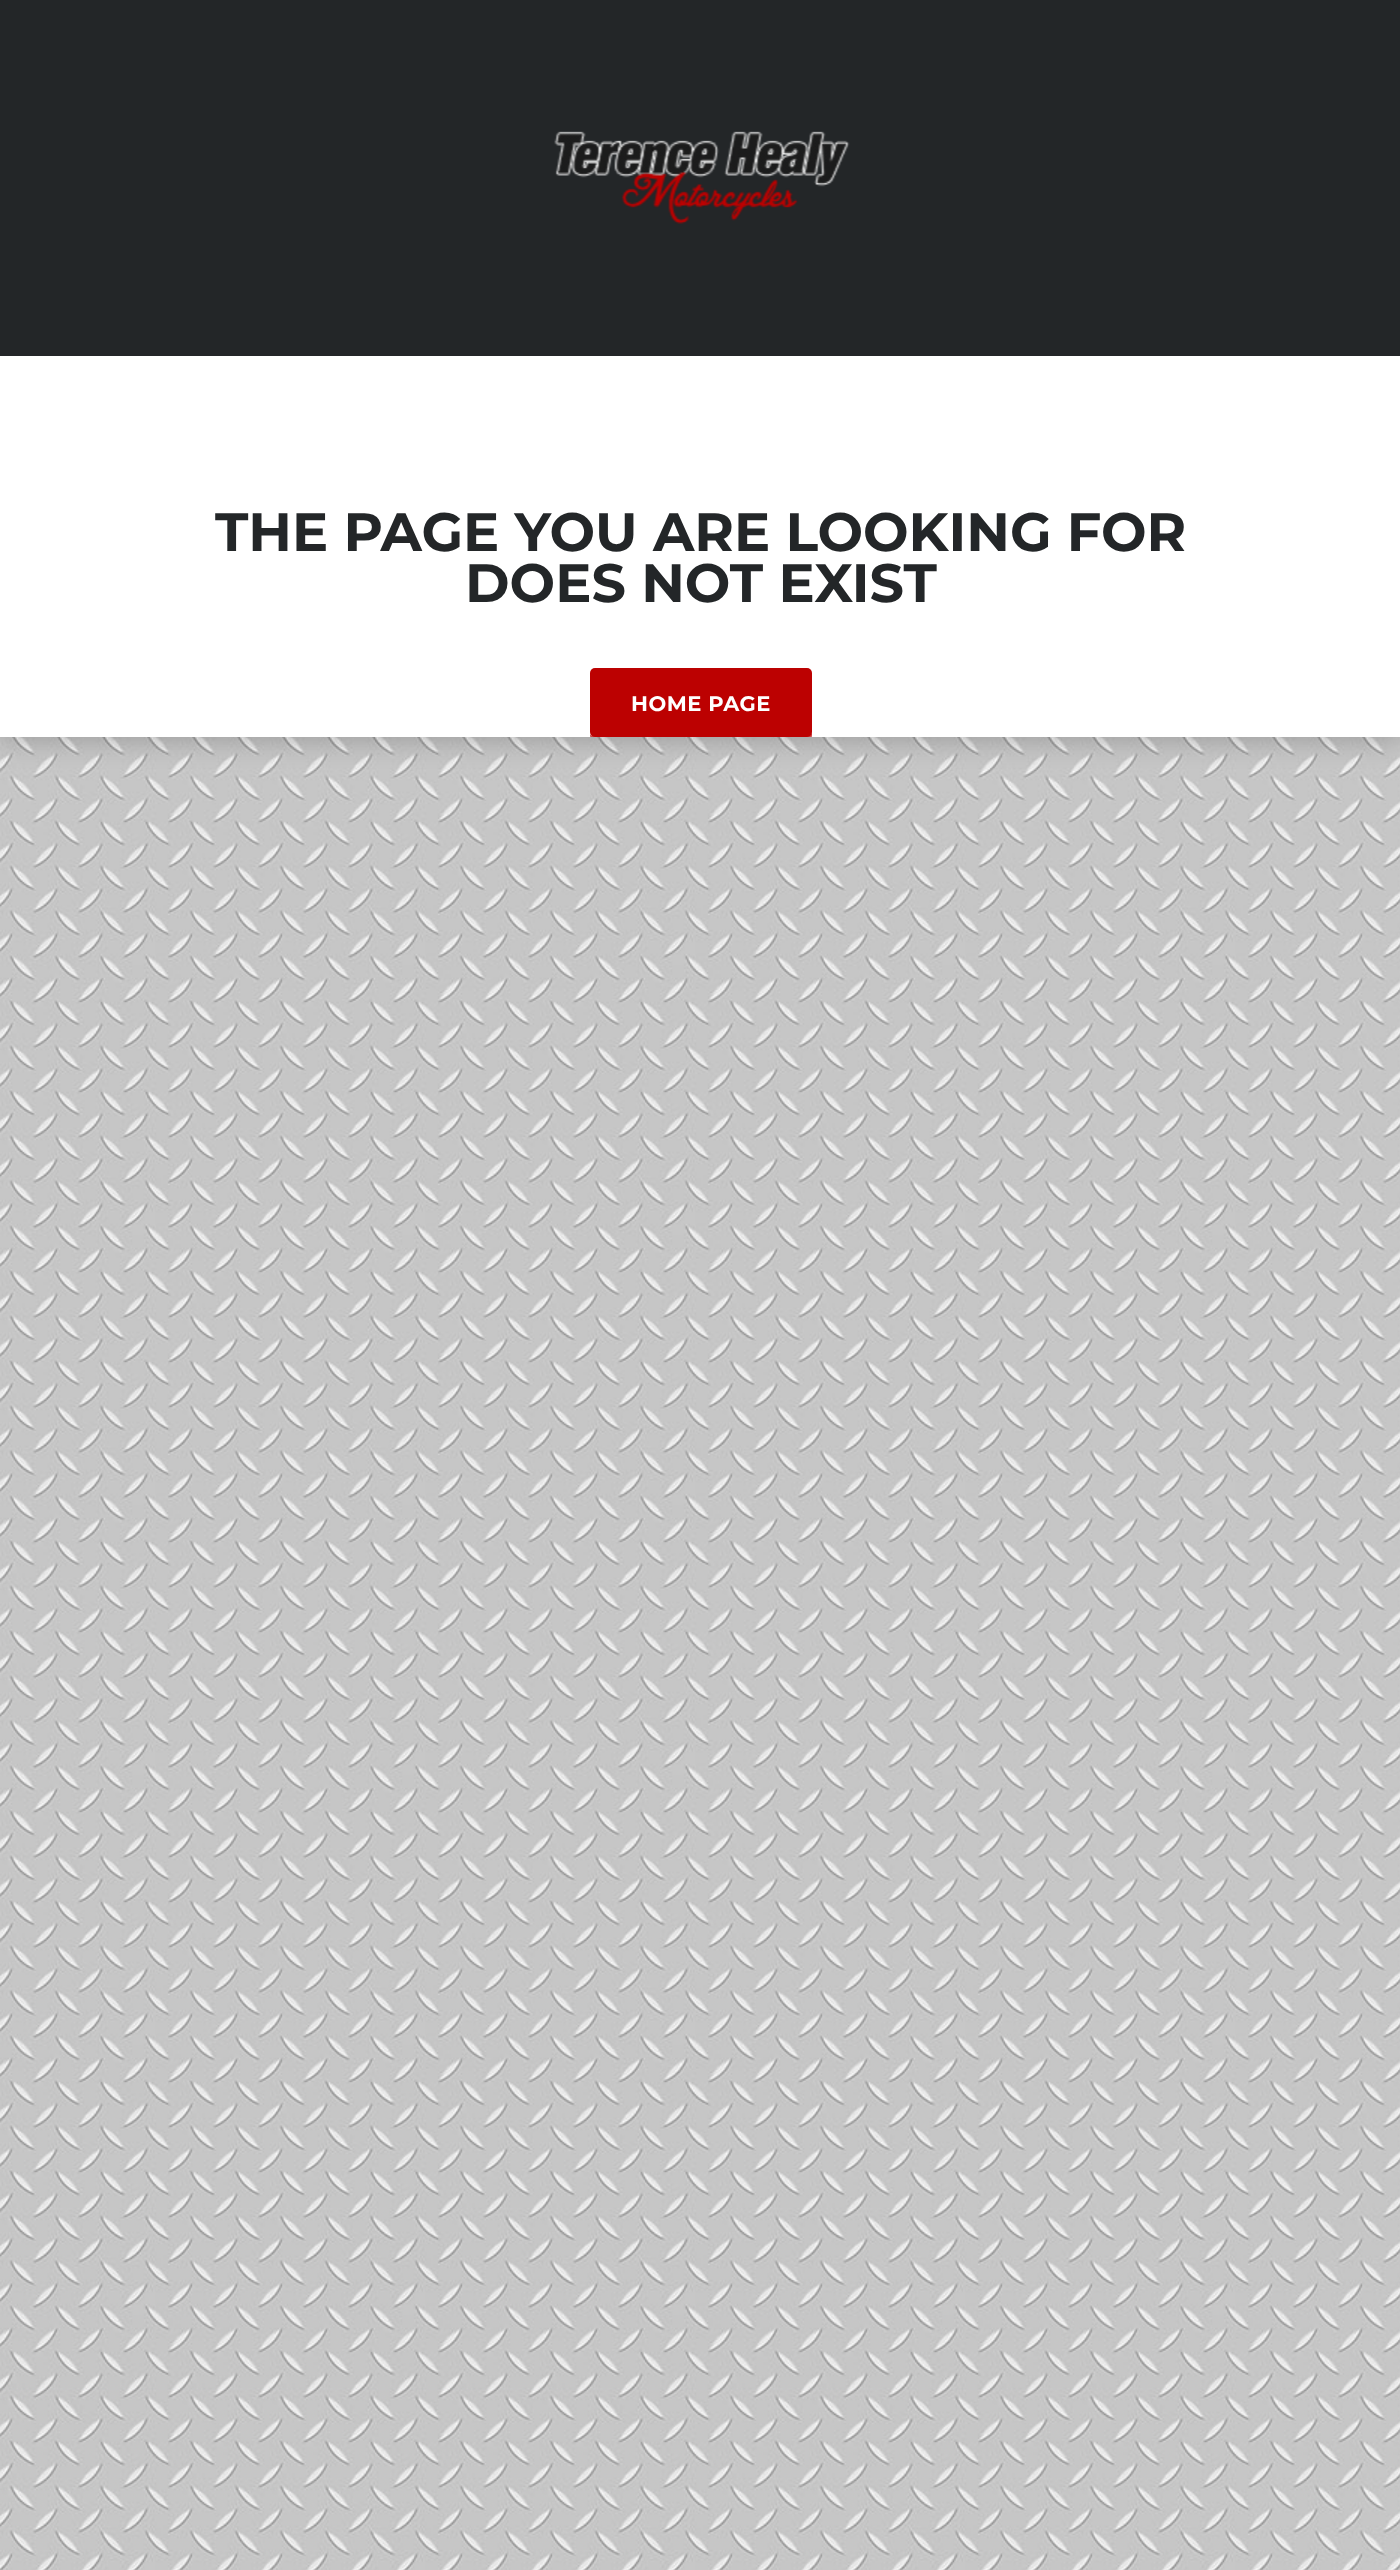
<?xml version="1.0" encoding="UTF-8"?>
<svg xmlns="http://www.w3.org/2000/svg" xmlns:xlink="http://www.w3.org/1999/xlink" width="1400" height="2570">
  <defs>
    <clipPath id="clip1"><rect width="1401" height="737" /></clipPath>
  </defs>
  <rect width="100%" height="100%" fill="#ffffff" />
  <image x="0" y="737" width="1400" height="1833" xlink:href="image1.png" />
  <rect width="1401" height="737" fill="#000000" fill-opacity="0.25" filter="blur(15px)" />
  <rect y="356" width="1400" height="381" fill="#ffffff" />
  <rect width="1400" height="356" fill="#232628" />
  <image x="554" y="131" width="296" height="93" xlink:href="image2.png" />
  <g clip-path="url(#clip1)">
    <path d="M 590 734 v 1 c 0 3 2 5 5 5 h 212 c 3 0 5 -2 5 -5 v -59 v -2 v 58 c 0 2 -3 4 -5 4 h -213 c -2 0 -3 0 -4 -2 z" fill="#cd4141" />
  </g>
  <rect x="590" y="668" width="222" height="69" rx="5" fill="#bc0101" />
  <text x="215" y="551" style="font-family: Montserrat; font-size: 54px; font-weight: bold; fill: #232628">THE PAGE YOU ARE LOOKING FOR</text>
  <text x="465" y="602" style="font-family: Montserrat; font-size: 54px; font-weight: bold; fill: #232628">DOES NOT EXIST</text>
  <text x="631" y="711" style="font-family: Montserrat; font-size: 21px; font-weight: bold; letter-spacing: 0.5px; fill: #ffffff">HOME PAGE</text>
</svg>
